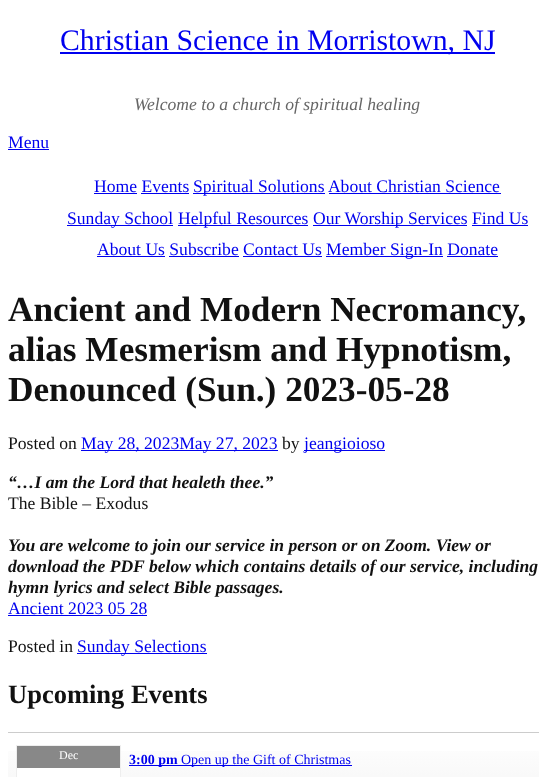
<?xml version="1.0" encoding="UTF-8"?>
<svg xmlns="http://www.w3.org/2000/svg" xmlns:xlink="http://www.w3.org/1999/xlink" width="555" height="777">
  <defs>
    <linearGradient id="g1" gradientUnits="userSpaceOnUse" x1="274" y1="733" x2="274" y2="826"><stop offset="0" stop-color="#ffffff" /><stop offset="1" stop-color="#f2f2f2" /></linearGradient>
  </defs>
  <rect width="100%" height="100%" fill="#ffffff" />
  <rect x="60" y="52" width="435" height="2" fill="#0000ee" />
  <rect x="8" y="149" width="41" height="1" fill="#0000ee" />
  <rect x="94" y="193" width="43" height="1" fill="#0000ee" />
  <rect x="193" y="193" width="132" height="1" fill="#0000ee" />
  <rect x="141" y="193" width="48" height="1" fill="#0000ee" />
  <rect x="329" y="193" width="172" height="1" fill="#0000ee" />
  <rect x="67" y="225" width="106" height="1" fill="#0000ee" />
  <rect x="178" y="225" width="130" height="1" fill="#0000ee" />
  <rect x="313" y="225" width="154" height="1" fill="#0000ee" />
  <rect x="472" y="225" width="56" height="1" fill="#0000ee" />
  <rect x="97" y="256" width="68" height="1" fill="#0000ee" />
  <rect x="326" y="256" width="117" height="1" fill="#0000ee" />
  <rect x="169" y="256" width="70" height="1" fill="#0000ee" />
  <rect x="243" y="256" width="79" height="1" fill="#0000ee" />
  <rect x="447" y="256" width="51" height="1" fill="#0000ee" />
  <rect x="81" y="450" width="197" height="1" fill="#0000ee" />
  <rect x="304" y="450" width="81" height="1" fill="#0000ee" />
  <rect x="8" y="615" width="139" height="1" fill="#0000ee" />
  <rect x="77" y="653" width="130" height="1" fill="#0000ee" />
  <rect x="8" y="751" width="531" height="26" fill="url(#g1)" />
  <rect x="8" y="732" width="531" height="1" fill="#cccccc" />
  <rect x="17" y="768" width="103" height="9" fill="#ffffff" />
  <rect x="16.5" y="745.5" width="104" height="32" fill="none" stroke="#eeeeee" />
  <rect x="17" y="746" width="103" height="22" fill="#888888" />
  <rect x="129" y="765" width="223" height="1" fill="#0000ee" />
  <text x="60" y="50" style="font-family: Liberation Serif; font-size: 29.75px; fill: #0000ee">Christian Science in Morristown, NJ</text>
  <text x="134" y="110" style="font-family: Liberation Serif; font-size: 17.6px; font-style: italic; fill: #666666">Welcome to a church of spiritual healing</text>
  <text x="8" y="148" style="font-family: Liberation Serif; font-size: 17.6px; fill: #0000ee">Menu</text>
  <text x="94" y="192" style="font-family: Liberation Serif; font-size: 17.6px; fill: #0000ee">Home Events</text>
  <text x="193" y="192" style="font-family: Liberation Serif; font-size: 17.6px; fill: #0000ee">Spiritual Solutions About Christian Science</text>
  <text x="67" y="224" style="font-family: Liberation Serif; font-size: 17.6px; fill: #0000ee">Sunday School</text>
  <text x="178" y="224" style="font-family: Liberation Serif; font-size: 17.6px; fill: #0000ee">Helpful Resources</text>
  <text x="313" y="224" style="font-family: Liberation Serif; font-size: 17.6px; fill: #0000ee">Our Worship Services Find Us</text>
  <text x="97" y="255" style="font-family: Liberation Serif; font-size: 17.6px; fill: #0000ee">About Us Subscribe Contact Us</text>
  <text x="326" y="255" style="font-family: Liberation Serif; font-size: 17.6px; fill: #0000ee">Member Sign-In Donate</text>
  <text x="8" y="321" style="font-family: Liberation Serif; font-size: 35.25px; font-weight: bold; fill: #111111">Ancient and Modern Necromancy,</text>
  <text x="8" y="361" style="font-family: Liberation Serif; font-size: 35.25px; font-weight: bold; fill: #111111">alias Mesmerism and Hypnotism,</text>
  <text x="8" y="401" style="font-family: Liberation Serif; font-size: 35.25px; font-weight: bold; fill: #111111">Denounced (Sun.) 2023-05-28</text>
  <text x="8" y="449" style="font-family: Liberation Serif; font-size: 17.6px; fill: #111111">Posted on</text>
  <text x="81" y="449" style="font-family: Liberation Serif; font-size: 17.6px; fill: #0000ee">May 28, 2023May 27, 2023</text>
  <text x="282" y="449" style="font-family: Liberation Serif; font-size: 17.6px; fill: #111111">by</text>
  <text x="304" y="449" style="font-family: Liberation Serif; font-size: 17.6px; fill: #0000ee">jeangioioso</text>
  <text x="8" y="488" style="font-family: Liberation Serif; font-size: 17.6px; font-weight: bold; font-style: italic; fill: #111111">“…I am the Lord that healeth thee.”</text>
  <text x="8" y="509" style="font-family: Liberation Serif; font-size: 17.6px; fill: #111111">The Bible – Exodus</text>
  <text x="8" y="551" style="font-family: Liberation Serif; font-size: 17.6px; font-weight: bold; font-style: italic; fill: #111111">You are welcome to join our service in person or on Zoom. View or</text>
  <text x="8" y="572" style="font-family: Liberation Serif; font-size: 17.6px; font-weight: bold; font-style: italic; fill: #111111">download the PDF below which contains details of our service, including</text>
  <text x="8" y="593" style="font-family: Liberation Serif; font-size: 17.6px; font-weight: bold; font-style: italic; fill: #111111">hymn lyrics and select Bible passages.</text>
  <text x="8" y="614" style="font-family: Liberation Serif; font-size: 17.6px; fill: #0000ee">Ancient 2023 05 28</text>
  <text x="8" y="652" style="font-family: Liberation Serif; font-size: 17.6px; fill: #111111">Posted in</text>
  <text x="77" y="652" style="font-family: Liberation Serif; font-size: 17.6px; fill: #0000ee">Sunday Selections</text>
  <text x="8" y="703" style="font-family: Liberation Serif; font-size: 26.5px; font-weight: bold; fill: #111111">Upcoming Events</text>
  <text x="59" y="759" style="font-family: Liberation Serif; font-size: 12px; fill: #ffffff">Dec</text>
  <text x="129" y="764" style="font-family: Liberation Serif; font-size: 14px; font-weight: bold; fill: #0000ee">3:00 pm</text>
  <text x="181" y="764" style="font-family: Liberation Serif; font-size: 14px; fill: #0000ee">Open up the Gift of Christmas</text>
</svg>
